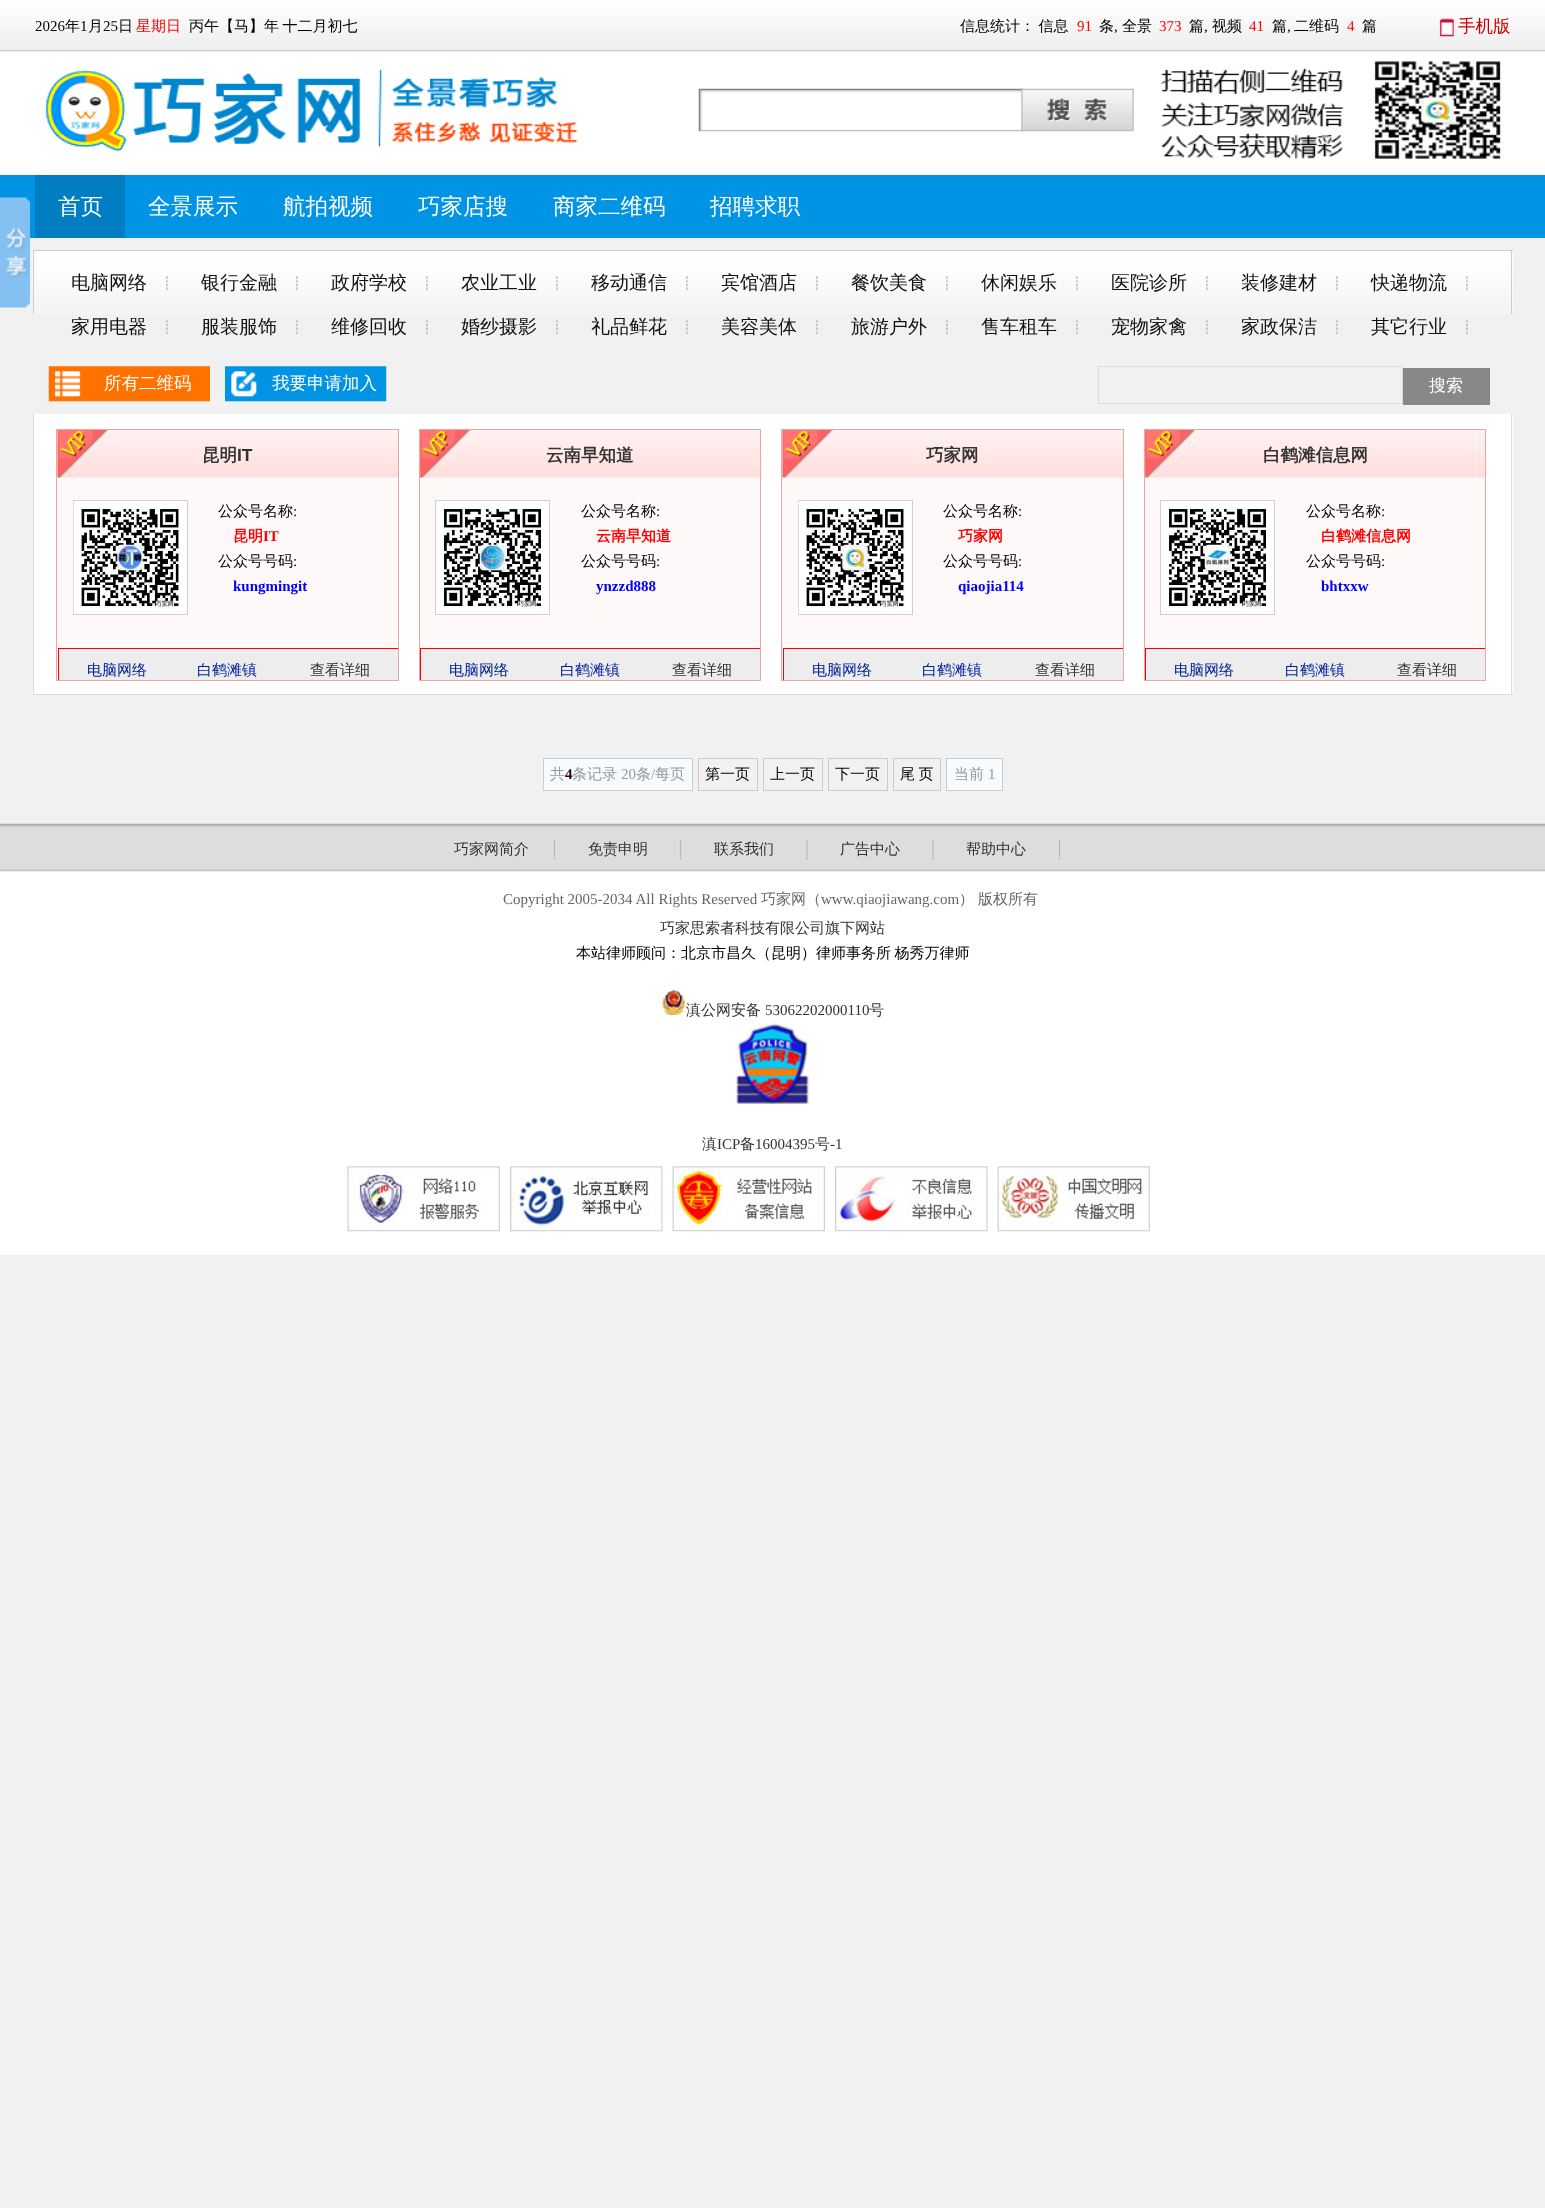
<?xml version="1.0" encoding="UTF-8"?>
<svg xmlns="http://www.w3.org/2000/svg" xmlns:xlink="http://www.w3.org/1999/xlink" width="1545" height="2208">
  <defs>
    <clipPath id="clip1"><rect x="58" y="430" width="340" height="250" /></clipPath>
    <clipPath id="clip2"><rect x="420" y="430" width="340" height="250" /></clipPath>
    <clipPath id="clip3"><rect x="783" y="430" width="340" height="250" /></clipPath>
    <clipPath id="clip4"><rect x="1145" y="430" width="340" height="250" /></clipPath>
  </defs>
  <rect width="100%" height="100%" fill="#f1f1f1" />
  <image x="0" y="0" width="1545" height="175" xlink:href="image1.png" />
  <image x="1439" y="18" width="15" height="19" xlink:href="image2.png" />
  <image x="45" y="69" width="533" height="83" xlink:href="image3.png" />
  <image x="698" y="88" width="326" height="44" xlink:href="image4.png" />
  <image x="1021" y="88" width="113" height="44" xlink:href="image5.png" />
  <image x="1161" y="61" width="340" height="98" xlink:href="image6.png" />
  <rect y="175" width="1545" height="63" fill="#0194e4" />
  <image x="0" y="197" width="30" height="111" xlink:href="image7.png" />
  <rect x="35" y="175" width="90" height="63" fill="#017ec2" />
  <rect x="34" y="251" width="1479" height="63" fill="#ffffff" />
  <image x="32" y="251" width="1481" height="63" xlink:href="image8.png" />
  <rect x="33" y="250" width="1480" height="1" fill="#cccccc" />
  <rect x="1511" y="250" width="1" height="64" fill="#cccccc" />
  <rect x="33" y="250" width="1" height="64" fill="#cccccc" />
  <image x="166" y="276" width="2" height="15" xlink:href="image9.png" />
  <image x="296" y="276" width="2" height="15" xlink:href="image9.png" />
  <image x="426" y="276" width="2" height="15" xlink:href="image9.png" />
  <image x="556" y="276" width="2" height="15" xlink:href="image9.png" />
  <image x="686" y="276" width="2" height="15" xlink:href="image9.png" />
  <image x="816" y="276" width="2" height="15" xlink:href="image9.png" />
  <image x="946" y="276" width="2" height="15" xlink:href="image9.png" />
  <image x="1076" y="276" width="2" height="15" xlink:href="image9.png" />
  <image x="1206" y="276" width="2" height="15" xlink:href="image9.png" />
  <image x="1336" y="276" width="2" height="15" xlink:href="image9.png" />
  <image x="1466" y="276" width="2" height="15" xlink:href="image9.png" />
  <image x="166" y="320" width="2" height="14" xlink:href="image10.png" />
  <image x="296" y="320" width="2" height="14" xlink:href="image10.png" />
  <image x="426" y="320" width="2" height="14" xlink:href="image10.png" />
  <image x="556" y="320" width="2" height="14" xlink:href="image10.png" />
  <image x="686" y="320" width="2" height="14" xlink:href="image10.png" />
  <image x="816" y="320" width="2" height="14" xlink:href="image10.png" />
  <image x="946" y="320" width="2" height="14" xlink:href="image10.png" />
  <image x="1076" y="320" width="2" height="14" xlink:href="image10.png" />
  <image x="1206" y="320" width="2" height="14" xlink:href="image10.png" />
  <image x="1336" y="320" width="2" height="14" xlink:href="image10.png" />
  <image x="1466" y="320" width="2" height="14" xlink:href="image10.png" />
  <image x="48" y="366" width="162" height="36" xlink:href="image11.png" />
  <image x="225" y="366" width="162" height="36" xlink:href="image12.png" />
  <rect x="1098.5" y="366.5" width="304" height="37" fill="none" stroke="#dddddd" />
  <rect x="1403" y="368" width="87" height="37" fill="#888888" />
  <rect x="34" y="414" width="1479" height="280" fill="#ffffff" />
  <rect x="1511" y="414" width="1" height="281" fill="#dddddd" />
  <rect x="33" y="694" width="1480" height="1" fill="#dddddd" />
  <rect x="33" y="414" width="1" height="281" fill="#dddddd" />
  <rect x="57" y="477" width="341" height="203" fill="#fff8f8" />
  <image x="57" y="430" width="341" height="48" xlink:href="image13.png" />
  <rect x="56.5" y="429.5" width="342" height="251" fill="none" stroke="#e6a9a6" />
  <rect x="73.5" y="500.5" width="114" height="114" fill="none" stroke="#d0d0d0" />
  <image x="73" y="501" width="113" height="113" xlink:href="image14.png" />
  <rect x="59" y="649" width="339" height="31" fill="#ededed" />
  <g clip-path="url(#clip1)">
    <rect x="58.5" y="648.5" width="341" height="45" fill="none" stroke="#ff0000" />
  </g>
  <rect x="420" y="477" width="340" height="171" fill="#fff8f8" />
  <image x="418" y="430" width="344" height="48" xlink:href="image15.png" />
  <rect x="419.5" y="429.5" width="341" height="251" fill="none" stroke="#e6a9a6" />
  <rect x="435.5" y="500.5" width="114" height="114" fill="none" stroke="#d0d0d0" />
  <image x="436" y="501" width="113" height="113" xlink:href="image16.png" />
  <rect x="421" y="649" width="339" height="31" fill="#ededed" />
  <g clip-path="url(#clip2)">
    <rect x="420.5" y="648.5" width="342" height="45" fill="none" stroke="#ff0000" />
  </g>
  <rect x="782" y="477" width="341" height="203" fill="#fff8f8" />
  <image x="782" y="430" width="341" height="48" xlink:href="image17.png" />
  <rect x="781.5" y="429.5" width="342" height="251" fill="none" stroke="#e6a9a6" />
  <rect x="798.5" y="500.5" width="114" height="114" fill="none" stroke="#d0d0d0" />
  <image x="798" y="501" width="113" height="113" xlink:href="image18.png" />
  <rect x="784" y="649" width="339" height="31" fill="#ededed" />
  <g clip-path="url(#clip3)">
    <rect x="783.5" y="648.5" width="341" height="45" fill="none" stroke="#ff0000" />
  </g>
  <rect x="1145" y="477" width="340" height="171" fill="#fff8f8" />
  <image x="1143" y="430" width="344" height="48" xlink:href="image19.png" />
  <rect x="1144.5" y="429.5" width="341" height="251" fill="none" stroke="#e6a9a6" />
  <rect x="1160.5" y="500.5" width="114" height="114" fill="none" stroke="#d0d0d0" />
  <image x="1161" y="501" width="113" height="113" xlink:href="image20.png" />
  <rect x="1146" y="649" width="339" height="31" fill="#ededed" />
  <g clip-path="url(#clip4)">
    <rect x="1145.5" y="648.5" width="342" height="45" fill="none" stroke="#ff0000" />
  </g>
  <rect x="543.5" y="758.5" width="149" height="32" fill="#f5fbff" stroke="#cccccc" />
  <rect x="698.5" y="758.5" width="59" height="32" fill="none" stroke="#cccccc" />
  <rect x="763.5" y="758.5" width="59" height="32" fill="none" stroke="#cccccc" />
  <rect x="828.5" y="758.5" width="59" height="32" fill="none" stroke="#cccccc" />
  <rect x="893.5" y="758.5" width="47" height="32" fill="none" stroke="#cccccc" />
  <rect x="946.5" y="758.5" width="56" height="32" fill="#f5fbff" stroke="#cccccc" />
  <rect y="872" width="1545" height="383" fill="#ffffff" />
  <image x="0" y="823" width="1545" height="49" xlink:href="image21.png" />
  <path d="M 554.5 840 v 19" fill="none" stroke="#999999" stroke-width="1.2" stroke-dasharray="1.25 1.25" />
  <path d="M 680.5 840 v 19" fill="none" stroke="#999999" stroke-width="1.2" stroke-dasharray="1.25 1.25" />
  <path d="M 807 840 v 19" fill="none" stroke="#999999" stroke-width="1.2" stroke-dasharray="1.25 1.25" />
  <path d="M 933 840 v 19" fill="none" stroke="#999999" stroke-width="1.2" stroke-dasharray="1.25 1.25" />
  <path d="M 1059.5 840 v 19" fill="none" stroke="#999999" stroke-width="1.2" stroke-dasharray="1.25 1.25" />
  <image x="662" y="990" width="24" height="25" xlink:href="image22.png" />
  <image x="735" y="1023" width="74" height="82" xlink:href="image23.png" />
  <image x="347" y="1166" width="153" height="66" xlink:href="image24.png" />
  <image x="510" y="1166" width="153" height="66" xlink:href="image25.png" />
  <image x="672" y="1166" width="153" height="66" xlink:href="image26.png" />
  <image x="835" y="1166" width="153" height="66" xlink:href="image27.png" />
  <image x="997" y="1166" width="153" height="66" xlink:href="image28.png" />
  <text x="35" y="31" style="font-family: Liberation Serif; font-size: 15px; fill: #000000">2026</text>
  <text x="65" y="31" style="font-family: WenQuanYi Zen Hei; font-size: 15px; font-weight: 500; fill: #000000">年</text>
  <text x="80" y="31" style="font-family: Liberation Serif; font-size: 15px; fill: #000000">1</text>
  <text x="88" y="31" style="font-family: WenQuanYi Zen Hei; font-size: 15px; font-weight: 500; fill: #000000">月</text>
  <text x="103" y="31" style="font-family: Liberation Serif; font-size: 15px; fill: #000000">25</text>
  <text x="118" y="31" style="font-family: WenQuanYi Zen Hei; font-size: 15px; font-weight: 500; fill: #000000">日</text>
  <text x="136" y="31" style="font-family: WenQuanYi Zen Hei; font-size: 15px; font-weight: 500; fill: #ff0000">星期日</text>
  <text x="189" y="31" word-spacing="-1" style="font-family: WenQuanYi Zen Hei; font-size: 15px; font-weight: 500; fill: #000000">丙午【马】年 十二月初七</text>
  <text x="960" y="31" word-spacing="-1" style="font-family: WenQuanYi Zen Hei; font-size: 15px; font-weight: 500; fill: #000000">信息统计： 信息</text>
  <text x="1077" y="31" style="font-family: Liberation Serif; font-size: 15px; fill: #ff0000">91</text>
  <text x="1099" y="31" style="font-family: WenQuanYi Zen Hei; font-size: 15px; font-weight: 500; fill: #000000">条</text>
  <text x="1122" y="31" style="font-family: WenQuanYi Zen Hei; font-size: 15px; font-weight: 500; fill: #000000">全景</text>
  <text x="1159" y="31" style="font-family: Liberation Serif; font-size: 15px; fill: #ff0000">373</text>
  <text x="1189" y="31" style="font-family: WenQuanYi Zen Hei; font-size: 15px; font-weight: 500; fill: #000000">篇</text>
  <text x="1212" y="31" style="font-family: WenQuanYi Zen Hei; font-size: 15px; font-weight: 500; fill: #000000">视频</text>
  <text x="1249" y="31" style="font-family: Liberation Serif; font-size: 15px; fill: #ff0000">41</text>
  <text x="1272" y="31" style="font-family: WenQuanYi Zen Hei; font-size: 15px; font-weight: 500; fill: #000000">篇</text>
  <text x="1294" y="31" style="font-family: WenQuanYi Zen Hei; font-size: 15px; font-weight: 500; fill: #000000">二维码</text>
  <text x="1347" y="31" style="font-family: Liberation Serif; font-size: 15px; fill: #ff0000">4</text>
  <text x="1362" y="31" style="font-family: WenQuanYi Zen Hei; font-size: 15px; font-weight: 500; fill: #000000">篇</text>
  <text x="1114" y="31" style="font-family: Liberation Serif; font-size: 15px; fill: #000000">,</text>
  <text x="1204" y="31" style="font-family: Liberation Serif; font-size: 15px; fill: #000000">,</text>
  <text x="1287" y="31" style="font-family: Liberation Serif; font-size: 15px; fill: #000000">,</text>
  <text x="1458" y="32" style="font-family: WenQuanYi Zen Hei; font-size: 17.5px; font-weight: 500; fill: #cc0000">手机版</text>
  <text x="58" y="214" style="font-family: WenQuanYi Zen Hei; font-size: 22.5px; font-weight: 500; fill: #ffffff">首页</text>
  <text x="148" y="214" style="font-family: WenQuanYi Zen Hei; font-size: 22.5px; font-weight: 500; fill: #ffffff">全景展示</text>
  <text x="283" y="214" style="font-family: WenQuanYi Zen Hei; font-size: 22.5px; font-weight: 500; fill: #ffffff">航拍视频</text>
  <text x="418" y="214" style="font-family: WenQuanYi Zen Hei; font-size: 22.5px; font-weight: 500; fill: #ffffff">巧家店搜</text>
  <text x="553" y="214" style="font-family: WenQuanYi Zen Hei; font-size: 22.5px; font-weight: 500; fill: #ffffff">商家二维码</text>
  <text x="710" y="214" style="font-family: WenQuanYi Zen Hei; font-size: 22.5px; font-weight: 500; fill: #ffffff">招聘求职</text>
  <text x="71" y="289" style="font-family: WenQuanYi Zen Hei; font-size: 19px; font-weight: 500; fill: #111111">电脑网络</text>
  <text x="201" y="289" style="font-family: WenQuanYi Zen Hei; font-size: 19px; font-weight: 500; fill: #111111">银行金融</text>
  <text x="331" y="289" style="font-family: WenQuanYi Zen Hei; font-size: 19px; font-weight: 500; fill: #111111">政府学校</text>
  <text x="461" y="289" style="font-family: WenQuanYi Zen Hei; font-size: 19px; font-weight: 500; fill: #111111">农业工业</text>
  <text x="591" y="289" style="font-family: WenQuanYi Zen Hei; font-size: 19px; font-weight: 500; fill: #111111">移动通信</text>
  <text x="721" y="289" style="font-family: WenQuanYi Zen Hei; font-size: 19px; font-weight: 500; fill: #111111">宾馆酒店</text>
  <text x="851" y="289" style="font-family: WenQuanYi Zen Hei; font-size: 19px; font-weight: 500; fill: #111111">餐饮美食</text>
  <text x="981" y="289" style="font-family: WenQuanYi Zen Hei; font-size: 19px; font-weight: 500; fill: #111111">休闲娱乐</text>
  <text x="1111" y="289" style="font-family: WenQuanYi Zen Hei; font-size: 19px; font-weight: 500; fill: #111111">医院诊所</text>
  <text x="1241" y="289" style="font-family: WenQuanYi Zen Hei; font-size: 19px; font-weight: 500; fill: #111111">装修建材</text>
  <text x="1371" y="289" style="font-family: WenQuanYi Zen Hei; font-size: 19px; font-weight: 500; fill: #111111">快递物流</text>
  <text x="71" y="333" style="font-family: WenQuanYi Zen Hei; font-size: 19px; font-weight: 500; fill: #111111">家用电器</text>
  <text x="201" y="333" style="font-family: WenQuanYi Zen Hei; font-size: 19px; font-weight: 500; fill: #111111">服装服饰</text>
  <text x="331" y="333" style="font-family: WenQuanYi Zen Hei; font-size: 19px; font-weight: 500; fill: #111111">维修回收</text>
  <text x="461" y="333" style="font-family: WenQuanYi Zen Hei; font-size: 19px; font-weight: 500; fill: #111111">婚纱摄影</text>
  <text x="591" y="333" style="font-family: WenQuanYi Zen Hei; font-size: 19px; font-weight: 500; fill: #111111">礼品鲜花</text>
  <text x="721" y="333" style="font-family: WenQuanYi Zen Hei; font-size: 19px; font-weight: 500; fill: #111111">美容美体</text>
  <text x="851" y="333" style="font-family: WenQuanYi Zen Hei; font-size: 19px; font-weight: 500; fill: #111111">旅游户外</text>
  <text x="981" y="333" style="font-family: WenQuanYi Zen Hei; font-size: 19px; font-weight: 500; fill: #111111">售车租车</text>
  <text x="1111" y="333" style="font-family: WenQuanYi Zen Hei; font-size: 19px; font-weight: 500; fill: #111111">宠物家禽</text>
  <text x="1241" y="333" style="font-family: WenQuanYi Zen Hei; font-size: 19px; font-weight: 500; fill: #111111">家政保洁</text>
  <text x="1371" y="333" style="font-family: WenQuanYi Zen Hei; font-size: 19px; font-weight: 500; fill: #111111">其它行业</text>
  <text x="104" y="389" style="font-family: WenQuanYi Zen Hei; font-size: 17.5px; font-weight: 500; fill: #ffffff">所有二维码</text>
  <text x="272" y="389" style="font-family: WenQuanYi Zen Hei; font-size: 17.5px; font-weight: 500; fill: #ffffff">我要申请加入</text>
  <text x="1429" y="391" style="font-family: WenQuanYi Zen Hei; font-size: 17px; font-weight: 500; fill: #ffffff">搜索</text>
  <text x="202" y="461" style="font-family: WenQuanYi Zen Hei; font-size: 17.5px; font-weight: bold; fill: #333333">昆明</text>
  <text x="237" y="461" style="font-family: Liberation Sans; font-size: 17.5px; font-weight: bold; fill: #333333">IT</text>
  <text x="218" y="516" style="font-family: WenQuanYi Zen Hei; font-size: 15px; font-weight: 500; fill: #000000">公众号名称</text>
  <text x="293" y="516" style="font-family: Liberation Serif; font-size: 15px; fill: #000000">:</text>
  <text x="233" y="541" style="font-family: WenQuanYi Zen Hei; font-size: 15px; font-weight: bold; fill: #ff0000">昆明</text>
  <text x="263" y="541" style="font-family: Liberation Serif; font-size: 15px; font-weight: bold; fill: #ff0000">IT</text>
  <text x="218" y="566" style="font-family: WenQuanYi Zen Hei; font-size: 15px; font-weight: 500; fill: #000000">公众号号码</text>
  <text x="293" y="566" style="font-family: Liberation Serif; font-size: 15px; fill: #000000">:</text>
  <text x="233" y="591" style="font-family: Liberation Serif; font-size: 15px; font-weight: bold; fill: #0000ff">kungmingit</text>
  <text x="87" y="675" style="font-family: WenQuanYi Zen Hei; font-size: 15px; font-weight: 500; fill: #002299">电脑网络</text>
  <text x="197" y="675" style="font-family: WenQuanYi Zen Hei; font-size: 15px; font-weight: 500; fill: #002299">白鹤滩镇</text>
  <text x="310" y="675" style="font-family: WenQuanYi Zen Hei; font-size: 15px; font-weight: 500; fill: #333333">查看详细</text>
  <text x="546" y="461" style="font-family: WenQuanYi Zen Hei; font-size: 17.5px; font-weight: bold; fill: #333333">云南早知道</text>
  <text x="581" y="516" style="font-family: WenQuanYi Zen Hei; font-size: 15px; font-weight: 500; fill: #000000">公众号名称</text>
  <text x="656" y="516" style="font-family: Liberation Serif; font-size: 15px; fill: #000000">:</text>
  <text x="596" y="541" style="font-family: WenQuanYi Zen Hei; font-size: 15px; font-weight: bold; fill: #ff0000">云南早知道</text>
  <text x="581" y="566" style="font-family: WenQuanYi Zen Hei; font-size: 15px; font-weight: 500; fill: #000000">公众号号码</text>
  <text x="656" y="566" style="font-family: Liberation Serif; font-size: 15px; fill: #000000">:</text>
  <text x="596" y="591" style="font-family: Liberation Serif; font-size: 15px; font-weight: bold; fill: #0000ff">ynzzd888</text>
  <text x="449" y="675" style="font-family: WenQuanYi Zen Hei; font-size: 15px; font-weight: 500; fill: #002299">电脑网络</text>
  <text x="560" y="675" style="font-family: WenQuanYi Zen Hei; font-size: 15px; font-weight: 500; fill: #002299">白鹤滩镇</text>
  <text x="672" y="675" style="font-family: WenQuanYi Zen Hei; font-size: 15px; font-weight: 500; fill: #333333">查看详细</text>
  <text x="926" y="461" style="font-family: WenQuanYi Zen Hei; font-size: 17.5px; font-weight: bold; fill: #333333">巧家网</text>
  <text x="943" y="516" style="font-family: WenQuanYi Zen Hei; font-size: 15px; font-weight: 500; fill: #000000">公众号名称</text>
  <text x="1018" y="516" style="font-family: Liberation Serif; font-size: 15px; fill: #000000">:</text>
  <text x="958" y="541" style="font-family: WenQuanYi Zen Hei; font-size: 15px; font-weight: bold; fill: #ff0000">巧家网</text>
  <text x="943" y="566" style="font-family: WenQuanYi Zen Hei; font-size: 15px; font-weight: 500; fill: #000000">公众号号码</text>
  <text x="1018" y="566" style="font-family: Liberation Serif; font-size: 15px; fill: #000000">:</text>
  <text x="958" y="591" style="font-family: Liberation Serif; font-size: 15px; font-weight: bold; fill: #0000ff">qiaojia114</text>
  <text x="812" y="675" style="font-family: WenQuanYi Zen Hei; font-size: 15px; font-weight: 500; fill: #002299">电脑网络</text>
  <text x="922" y="675" style="font-family: WenQuanYi Zen Hei; font-size: 15px; font-weight: 500; fill: #002299">白鹤滩镇</text>
  <text x="1035" y="675" style="font-family: WenQuanYi Zen Hei; font-size: 15px; font-weight: 500; fill: #333333">查看详细</text>
  <text x="1263" y="461" style="font-family: WenQuanYi Zen Hei; font-size: 17.5px; font-weight: bold; fill: #333333">白鹤滩信息网</text>
  <text x="1306" y="516" style="font-family: WenQuanYi Zen Hei; font-size: 15px; font-weight: 500; fill: #000000">公众号名称</text>
  <text x="1381" y="516" style="font-family: Liberation Serif; font-size: 15px; fill: #000000">:</text>
  <text x="1321" y="541" style="font-family: WenQuanYi Zen Hei; font-size: 15px; font-weight: bold; fill: #ff0000">白鹤滩信息网</text>
  <text x="1306" y="566" style="font-family: WenQuanYi Zen Hei; font-size: 15px; font-weight: 500; fill: #000000">公众号号码</text>
  <text x="1381" y="566" style="font-family: Liberation Serif; font-size: 15px; fill: #000000">:</text>
  <text x="1321" y="591" style="font-family: Liberation Serif; font-size: 15px; font-weight: bold; fill: #0000ff">bhtxxw</text>
  <text x="1174" y="675" style="font-family: WenQuanYi Zen Hei; font-size: 15px; font-weight: 500; fill: #002299">电脑网络</text>
  <text x="1285" y="675" style="font-family: WenQuanYi Zen Hei; font-size: 15px; font-weight: 500; fill: #002299">白鹤滩镇</text>
  <text x="1397" y="675" style="font-family: WenQuanYi Zen Hei; font-size: 15px; font-weight: 500; fill: #333333">查看详细</text>
  <text x="550" y="779" style="font-family: WenQuanYi Zen Hei; font-size: 15px; font-weight: 500; fill: #999999">共</text>
  <text x="565" y="779" style="font-family: Liberation Serif; font-size: 15px; font-weight: bold; fill: #330000">4</text>
  <text x="572" y="779" style="font-family: WenQuanYi Zen Hei; font-size: 15px; font-weight: 500; fill: #999999">条记录</text>
  <text x="621" y="779" style="font-family: Liberation Serif; font-size: 15px; fill: #999999">20</text>
  <text x="636" y="779" style="font-family: WenQuanYi Zen Hei; font-size: 15px; font-weight: 500; fill: #999999">条</text>
  <text x="651" y="779" style="font-family: Liberation Serif; font-size: 15px; fill: #999999">/</text>
  <text x="655" y="779" style="font-family: WenQuanYi Zen Hei; font-size: 15px; font-weight: 500; fill: #999999">每页</text>
  <text x="705" y="779" style="font-family: WenQuanYi Zen Hei; font-size: 15px; font-weight: 500; fill: #000000">第一页</text>
  <text x="770" y="779" style="font-family: WenQuanYi Zen Hei; font-size: 15px; font-weight: 500; fill: #000000">上一页</text>
  <text x="835" y="779" style="font-family: WenQuanYi Zen Hei; font-size: 15px; font-weight: 500; fill: #000000">下一页</text>
  <text x="900" y="779" word-spacing="-1" style="font-family: WenQuanYi Zen Hei; font-size: 15px; font-weight: 500; fill: #000000">尾 页</text>
  <text x="954" y="779" style="font-family: WenQuanYi Zen Hei; font-size: 15px; font-weight: 500; fill: #999999">当前</text>
  <text x="988" y="779" style="font-family: Liberation Serif; font-size: 15px; fill: #999999">1</text>
  <text x="454" y="854" style="font-family: WenQuanYi Zen Hei; font-size: 15px; font-weight: 500; fill: #333333">巧家网简介</text>
  <text x="588" y="854" style="font-family: WenQuanYi Zen Hei; font-size: 15px; font-weight: 500; fill: #333333">免责申明</text>
  <text x="714" y="854" style="font-family: WenQuanYi Zen Hei; font-size: 15px; font-weight: 500; fill: #333333">联系我们</text>
  <text x="840" y="854" style="font-family: WenQuanYi Zen Hei; font-size: 15px; font-weight: 500; fill: #333333">广告中心</text>
  <text x="966" y="854" style="font-family: WenQuanYi Zen Hei; font-size: 15px; font-weight: 500; fill: #333333">帮助中心</text>
  <text x="503" y="904" style="font-family: Liberation Serif; font-size: 15px; fill: #666666">Copyright 2005-2034 All Rights Reserved</text>
  <text x="761" y="904" style="font-family: WenQuanYi Zen Hei; font-size: 15px; font-weight: 500; fill: #666666">巧家网（</text>
  <text x="821" y="904" style="font-family: Liberation Serif; font-size: 15px; fill: #666666">www.qiaojiawang.com</text>
  <text x="959" y="904" style="font-family: WenQuanYi Zen Hei; font-size: 15px; font-weight: 500; fill: #666666">）</text>
  <text x="978" y="904" style="font-family: WenQuanYi Zen Hei; font-size: 15px; font-weight: 500; fill: #666666">版权所有</text>
  <text x="660" y="933" style="font-family: WenQuanYi Zen Hei; font-size: 15px; font-weight: 500; fill: #333333">巧家思索者科技有限公司旗下网站</text>
  <text x="576" y="958" word-spacing="-1" style="font-family: WenQuanYi Zen Hei; font-size: 15px; font-weight: 500; fill: #000000">本站律师顾问：北京市昌久（昆明）律师事务所 杨秀万律师</text>
  <text x="686" y="1015" style="font-family: WenQuanYi Zen Hei; font-size: 15px; font-weight: 500; fill: #333333">滇公网安备</text>
  <text x="765" y="1015" style="font-family: Liberation Serif; font-size: 15px; fill: #333333">53062202000110</text>
  <text x="869" y="1015" style="font-family: WenQuanYi Zen Hei; font-size: 15px; font-weight: 500; fill: #333333">号</text>
  <text x="702" y="1149" style="font-family: WenQuanYi Zen Hei; font-size: 15px; font-weight: 500; fill: #333333">滇</text>
  <text x="717" y="1149" style="font-family: Liberation Serif; font-size: 15px; fill: #333333">ICP</text>
  <text x="740" y="1149" style="font-family: WenQuanYi Zen Hei; font-size: 15px; font-weight: 500; fill: #333333">备</text>
  <text x="755" y="1149" style="font-family: Liberation Serif; font-size: 15px; fill: #333333">16004395</text>
  <text x="815" y="1149" style="font-family: WenQuanYi Zen Hei; font-size: 15px; font-weight: 500; fill: #333333">号</text>
  <text x="830" y="1149" style="font-family: Liberation Serif; font-size: 15px; fill: #333333">-1</text>
</svg>
